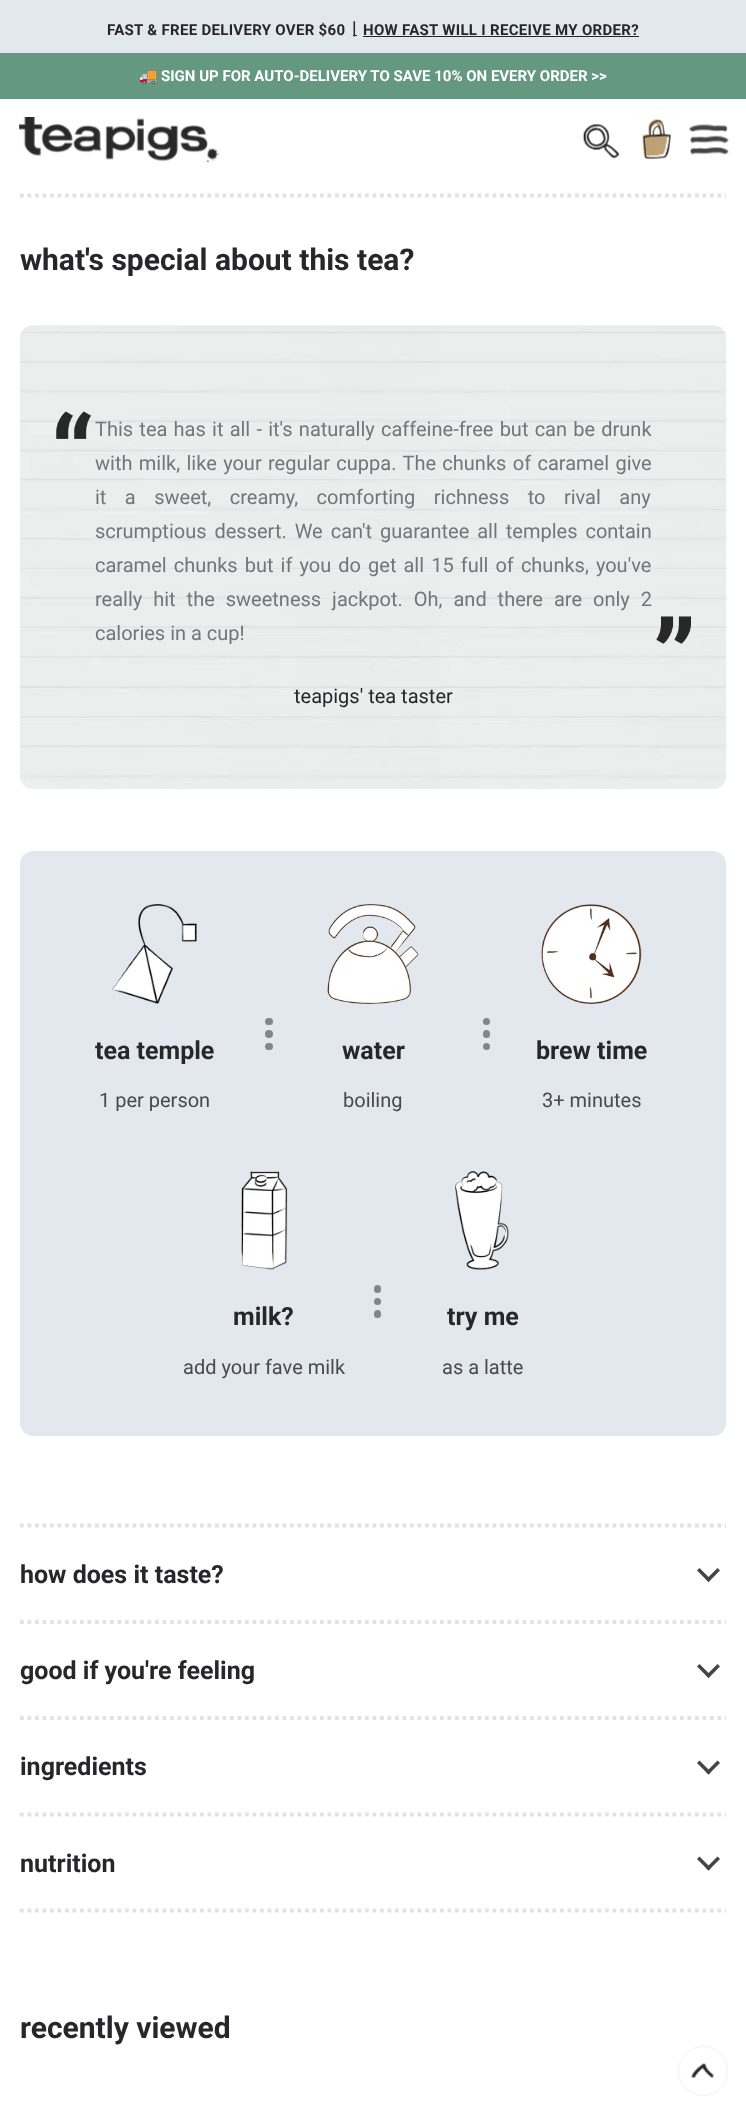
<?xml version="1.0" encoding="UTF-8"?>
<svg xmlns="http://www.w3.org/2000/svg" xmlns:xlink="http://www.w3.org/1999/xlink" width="746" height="2115">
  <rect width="100%" height="100%" fill="#ffffff" />
  <rect width="746" height="53" fill="#e2e8ed" />
  <rect x="353" y="35" width="4" height="1" fill="#272729" />
  <rect x="363" y="36" width="276" height="1" fill="#272729" />
  <rect y="53" width="746" height="46" fill="#649880" />
  <image x="19" y="117" width="200" height="45" xlink:href="image1.png" />
  <image x="582" y="123" width="38" height="36" xlink:href="image2.png" />
  <image x="642" y="119" width="29" height="41" xlink:href="image3.png" />
  <image x="688" y="124" width="41" height="31" xlink:href="image4.png" />
  <path d="M 20 195.5 h 706" fill="none" stroke="#e1e2e2" stroke-width="3.8" stroke-dasharray="3.75 3.75" />
  <image x="20" y="325" width="707" height="464" xlink:href="image5.png" />
  <image x="56" y="411" width="36" height="28" xlink:href="image6.png" />
  <image x="656" y="616" width="35" height="28" xlink:href="image7.png" />
  <rect x="20" y="851" width="706" height="585" rx="13" fill="#e2e8ed" />
  <image x="111" y="904" width="86" height="100" xlink:href="image8.png" />
  <rect x="265" y="1018" width="8" height="7" rx="3.5" fill="#818689" />
  <circle cx="269" cy="1034" r="4" fill="#818689" />
  <rect x="265" y="1043" width="8" height="7" rx="3.5" fill="#818689" />
  <image x="327" y="904" width="92" height="100" xlink:href="image9.png" />
  <circle cx="486.5" cy="1021.5" r="3.5" fill="#818689" />
  <rect x="483" y="1030" width="7" height="8" rx="3.5" fill="#818689" />
  <circle cx="486.5" cy="1046.5" r="3.5" fill="#818689" />
  <image x="541" y="904" width="101" height="100" xlink:href="image10.png" />
  <image x="241" y="1171" width="47" height="99" xlink:href="image11.png" />
  <rect x="374" y="1285" width="7" height="8" rx="3.5" fill="#818689" />
  <circle cx="377.5" cy="1301.5" r="3.5" fill="#818689" />
  <rect x="374" y="1310" width="7" height="8" rx="3.5" fill="#818689" />
  <image x="455" y="1171" width="54" height="99" xlink:href="image12.png" />
  <path d="M 20 1525.5 h 706" fill="none" stroke="#e1e2e2" stroke-width="3.8" stroke-dasharray="3.75 3.75" />
  <path d="M 20 1622 h 706" fill="none" stroke="#e1e2e2" stroke-width="3.8" stroke-dasharray="3.75 3.75" />
  <path d="M 720 1570.5 l -11.5 11.5 l -2.5 -2.5 l 11.5 -11.5 z" fill="#444444" />
  <path d="M 711 1579.5 l -2.5 2.5 l -11.5 -11.5 l 2.5 -2.5 z" fill="#444444" />
  <path d="M 20 1718 h 706" fill="none" stroke="#e1e2e2" stroke-width="3.8" stroke-dasharray="3.75 3.75" />
  <path d="M 720 1666.5 l -11.5 11.5 l -2.5 -2.5 l 11.5 -11.5 z" fill="#444444" />
  <path d="M 711 1675.5 l -2.5 2.5 l -11.5 -11.5 l 2.5 -2.5 z" fill="#444444" />
  <path d="M 20 1814.5 h 706" fill="none" stroke="#e1e2e2" stroke-width="3.8" stroke-dasharray="3.75 3.75" />
  <path d="M 720 1763 l -11.5 11.5 l -2.5 -2.5 l 11.5 -11.5 z" fill="#444444" />
  <path d="M 711 1772 l -2.5 2.5 l -11.5 -11.5 l 2.5 -2.5 z" fill="#444444" />
  <path d="M 20 1910.5 h 706" fill="none" stroke="#e1e2e2" stroke-width="3.8" stroke-dasharray="3.75 3.75" />
  <path d="M 720 1859 l -11.5 11.5 l -2.5 -2.5 l 11.5 -11.5 z" fill="#444444" />
  <path d="M 711 1868 l -2.5 2.5 l -11.5 -11.5 l 2.5 -2.5 z" fill="#444444" />
  <image x="691" y="2063" width="23" height="16" xlink:href="image13.png" />
  <circle cx="703" cy="2071" r="24.5" fill="none" stroke="#f2f2f2" />
  <text x="107" y="35" style="font-family: Roboto; font-size: 15px; font-weight: bold; letter-spacing: 0.3px; fill: #272729">FAST &amp; FREE DELIVERY OVER $60</text>
  <text x="352" y="34" style="font-family: Roboto; font-size: 18px; font-weight: bold; fill: #272729">|</text>
  <text x="363" y="35" style="font-family: Roboto; font-size: 15px; font-weight: bold; letter-spacing: 0.3px; fill: #272729">HOW FAST WILL I RECEIVE MY ORDER?</text>
  <text x="139" y="81" style="font-family: Noto Color Emoji; font-size: 15px; font-weight: bold; fill: #ffffff">🚚</text>
  <text x="161" y="81" style="font-family: Roboto; font-size: 15px; font-weight: bold; fill: #ffffff">SIGN UP FOR AUTO-DELIVERY TO SAVE 10% ON EVERY ORDER &gt;&gt;</text>
  <text x="20" y="270" style="font-family: Roboto; font-size: 30px; font-weight: bold; fill: #272729">what's special about this tea?</text>
  <text x="95" y="436" word-spacing="1.25" style="font-family: Roboto; font-size: 20px; fill: #707679">This tea has it all - it's naturally caffeine-free but can be drunk</text>
  <text x="95" y="470" word-spacing="1.4" style="font-family: Roboto; font-size: 20px; fill: #707679">with milk, like your regular cuppa. The chunks of caramel give</text>
  <text x="95" y="504" word-spacing="13.5" style="font-family: Roboto; font-size: 20px; fill: #707679">it a sweet, creamy, comforting richness to rival any</text>
  <text x="95" y="538" word-spacing="3" style="font-family: Roboto; font-size: 20px; fill: #707679">scrumptious dessert. We can't guarantee all temples contain</text>
  <text x="95" y="572" word-spacing="2.1" style="font-family: Roboto; font-size: 20px; fill: #707679">caramel chunks but if you do get all 15 full of chunks, you've</text>
  <text x="95" y="606" word-spacing="6" style="font-family: Roboto; font-size: 20px; fill: #707679">really hit the sweetness jackpot. Oh, and there are only 2</text>
  <text x="95" y="640" style="font-family: Roboto; font-size: 20px; fill: #707679">calories in a cup!</text>
  <text x="294" y="703" style="font-family: Roboto; font-size: 20px; fill: #272729">teapigs' tea taster</text>
  <text x="95" y="1059" style="font-family: Roboto; font-size: 25px; font-weight: bold; fill: #272729">tea temple</text>
  <text x="99" y="1107" style="font-family: Roboto; font-size: 20px; fill: #484a4c">1 per person</text>
  <text x="342" y="1059" style="font-family: Roboto; font-size: 25px; font-weight: bold; fill: #272729">water</text>
  <text x="343" y="1107" style="font-family: Roboto; font-size: 20px; fill: #484a4c">boiling</text>
  <text x="536" y="1059" style="font-family: Roboto; font-size: 25px; font-weight: bold; fill: #272729">brew time</text>
  <text x="542" y="1107" style="font-family: Roboto; font-size: 20px; fill: #484a4c">3+ minutes</text>
  <text x="233" y="1325" style="font-family: Roboto; font-size: 25px; font-weight: bold; fill: #272729">milk?</text>
  <text x="183" y="1374" style="font-family: Roboto; font-size: 20px; fill: #484a4c">add your fave milk</text>
  <text x="447" y="1325" style="font-family: Roboto; font-size: 25px; font-weight: bold; fill: #272729">try me</text>
  <text x="442" y="1374" style="font-family: Roboto; font-size: 20px; fill: #484a4c">as a latte</text>
  <text x="20" y="1583" style="font-family: Roboto; font-size: 25px; font-weight: bold; fill: #272729">how does it taste?</text>
  <text x="20" y="1679" style="font-family: Roboto; font-size: 25px; font-weight: bold; fill: #272729">good if you're feeling</text>
  <text x="20" y="1775" style="font-family: Roboto; font-size: 25px; font-weight: bold; fill: #272729">ingredients</text>
  <text x="20" y="1872" style="font-family: Roboto; font-size: 25px; font-weight: bold; fill: #272729">nutrition</text>
  <text x="20" y="2038" style="font-family: Roboto; font-size: 30px; font-weight: bold; fill: #272729">recently viewed</text>
</svg>
